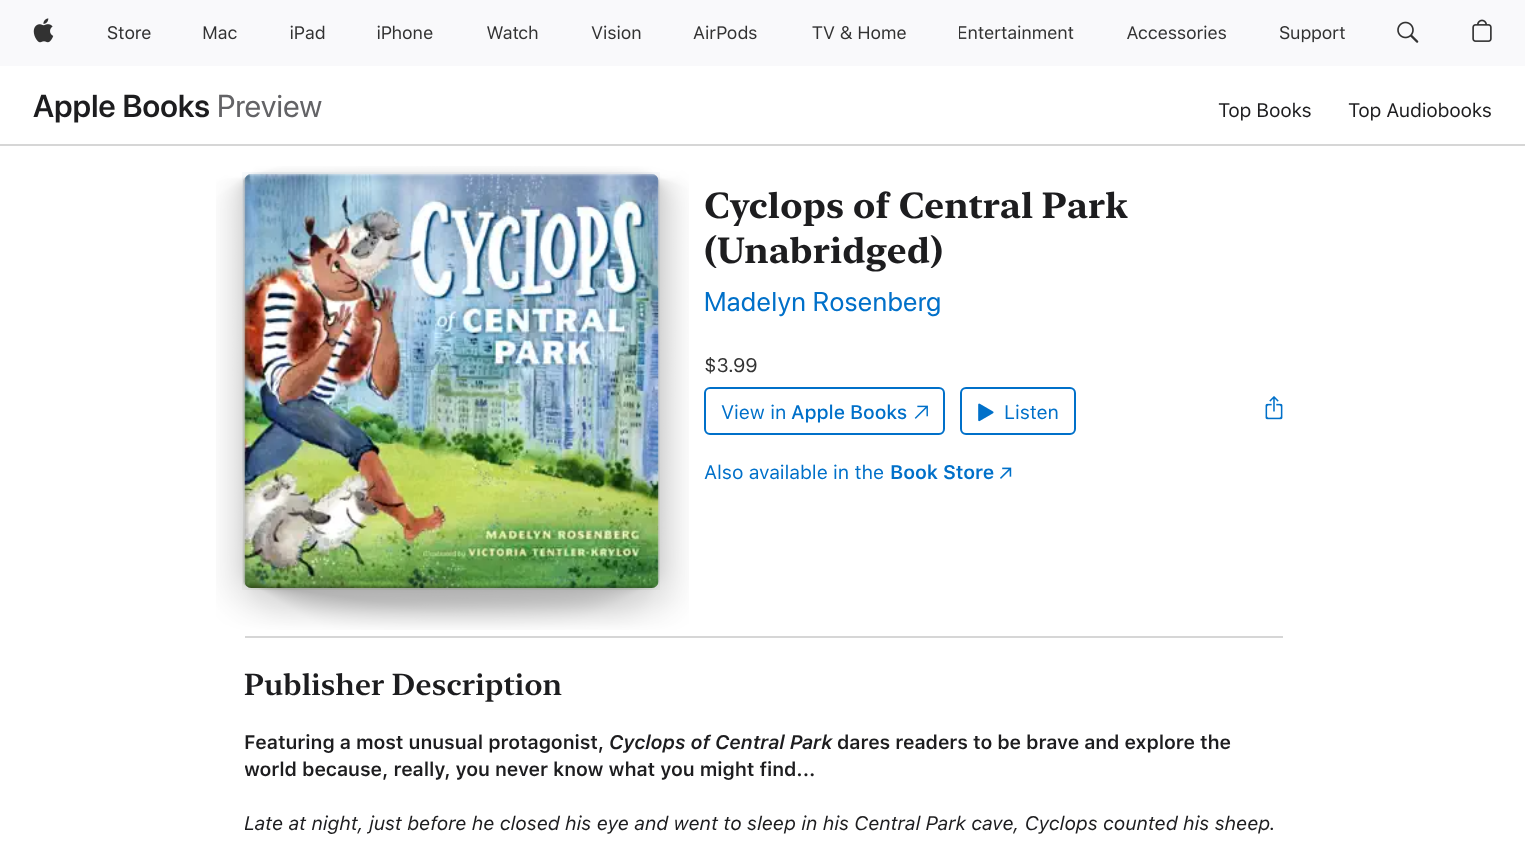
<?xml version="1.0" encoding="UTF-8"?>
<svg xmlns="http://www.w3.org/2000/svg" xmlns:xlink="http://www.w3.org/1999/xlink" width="1525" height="847">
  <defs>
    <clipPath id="clip1"><rect x="245" y="729" width="1038" height="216" /></clipPath>
  </defs>
  <rect width="100%" height="100%" fill="#ffffff" />
  <rect width="1525" height="66" fill="#f9f9fb" />
  <image x="33" y="18" width="21" height="25" xlink:href="image1.png" />
  <image x="107" y="26" width="44" height="14" xlink:href="image2.png" />
  <image x="203" y="26" width="34" height="14" xlink:href="image3.png" />
  <image x="290" y="25" width="35" height="15" xlink:href="image4.png" />
  <image x="377" y="25" width="56" height="15" xlink:href="image5.png" />
  <image x="487" y="25" width="51" height="15" xlink:href="image6.png" />
  <image x="591" y="25" width="50" height="15" xlink:href="image7.png" />
  <image x="693" y="25" width="64" height="15" xlink:href="image8.png" />
  <image x="812" y="26" width="94" height="14" xlink:href="image9.png" />
  <image x="959" y="25" width="115" height="15" xlink:href="image10.png" />
  <image x="1127" y="25" width="99" height="15" xlink:href="image11.png" />
  <image x="1280" y="26" width="65" height="17" xlink:href="image12.png" />
  <image x="1397" y="21" width="22" height="22" xlink:href="image13.png" />
  <image x="1472" y="19" width="20" height="23" xlink:href="image14.png" />
  <rect y="144" width="1525" height="2" fill="#d6d6d6" />
  <image x="216" y="166" width="473" height="464" xlink:href="image15.png" />
  <image x="242" y="172" width="418" height="418" xlink:href="image16.png" />
  <image x="244" y="174" width="415" height="414" xlink:href="image17.png" />
  <image x="244" y="174" width="415" height="414" xlink:href="image18.png" />
  <rect x="705" y="388" width="239" height="46" rx="5" fill="none" stroke="#0070c9" stroke-width="2" />
  <image x="914" y="405" width="14" height="14" xlink:href="image19.png" />
  <rect x="961" y="388" width="114" height="46" rx="5" fill="none" stroke="#0070c9" stroke-width="2" />
  <image x="978" y="403" width="16" height="19" xlink:href="image20.png" />
  <image x="1265" y="396" width="18" height="24" xlink:href="image21.png" />
  <image x="1000" y="467" width="12" height="12" xlink:href="image22.png" />
  <rect x="245" y="636" width="1038" height="2" fill="#d6d6d6" />
  <text x="33" y="117" style="font-family: SF Pro Display; font-size: 31.5px; font-weight: 600; letter-spacing: 0.25px; fill: #1d1d1f">Apple Books</text>
  <text x="217" y="117" style="font-family: SF Pro Display; font-size: 31.5px; letter-spacing: 0.25px; fill: #636366">Preview</text>
  <text x="1218" y="117" style="font-family: SF Pro Text; font-size: 19.5px; letter-spacing: -0.25px; fill: #1d1d1f">Top Books</text>
  <text x="1348" y="117" style="font-family: SF Pro Text; font-size: 19.5px; letter-spacing: -0.25px; fill: #1d1d1f">Top Audiobooks</text>
  <text x="704" y="218" style="font-family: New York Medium; font-size: 36px; font-weight: 500; fill: #1d1d1f">Cyclops of Central Park</text>
  <text x="704" y="263" style="font-family: New York Medium; font-size: 36px; font-weight: 500; fill: #1d1d1f">(Unabridged)</text>
  <text x="704" y="311" style="font-family: SF Pro Display; font-size: 27px; letter-spacing: 0.75px; fill: #0070c9">Madelyn Rosenberg</text>
  <text x="704" y="372" style="font-family: SF Pro Text; font-size: 19.5px; letter-spacing: -0.1px; fill: #333333">$3.99</text>
  <text x="721" y="419" style="font-family: SF Pro Text; font-size: 19.5px; letter-spacing: -0.1px; fill: #0070c9">View in</text>
  <text x="791" y="419" style="font-family: SF Pro Text; font-size: 19.5px; font-weight: 500; letter-spacing: -0.1px; fill: #0070c9">Apple Books</text>
  <text x="1004" y="419" style="font-family: SF Pro Text; font-size: 19.5px; letter-spacing: -0.1px; fill: #0070c9">Listen</text>
  <text x="704" y="479" style="font-family: SF Pro Text; font-size: 19.5px; letter-spacing: -0.1px; fill: #0070c9">Also available in the</text>
  <text x="890" y="479" style="font-family: SF Pro Text; font-size: 19.5px; font-weight: 600; letter-spacing: -0.1px; fill: #0070c9">Book Store</text>
  <text x="244" y="695" style="font-family: New York Medium; font-size: 30px; font-weight: 600; fill: #1d1d1f">Publisher Description</text>
  <text x="244" y="749" style="font-family: SF Pro Text; font-size: 19.5px; font-weight: 600; letter-spacing: -0.1px; fill: #1d1d1f">Featuring a most unusual protagonist,</text>
  <text x="609" y="749" style="font-family: SF Pro Text; font-size: 19.5px; font-weight: 600; font-style: italic; letter-spacing: -0.1px; fill: #1d1d1f">Cyclops of Central Park</text>
  <text x="837" y="749" style="font-family: SF Pro Text; font-size: 19.5px; font-weight: 600; letter-spacing: -0.1px; fill: #1d1d1f">dares readers to be brave and explore the</text>
  <g clip-path="url(#clip1)">
    <text x="244" y="776" style="font-family: SF Pro Text; font-size: 19.5px; font-weight: 600; letter-spacing: -0.1px; fill: #1d1d1f">world because, really, you never know what you might find...</text>
    <text x="244" y="830" style="font-family: SF Pro Text; font-size: 19.5px; font-style: italic; letter-spacing: -0.1px; fill: #1d1d1f">Late at night, just before he closed his eye and went to sleep in his Central Park cave, Cyclops counted his sheep.</text>
  </g>
</svg>
